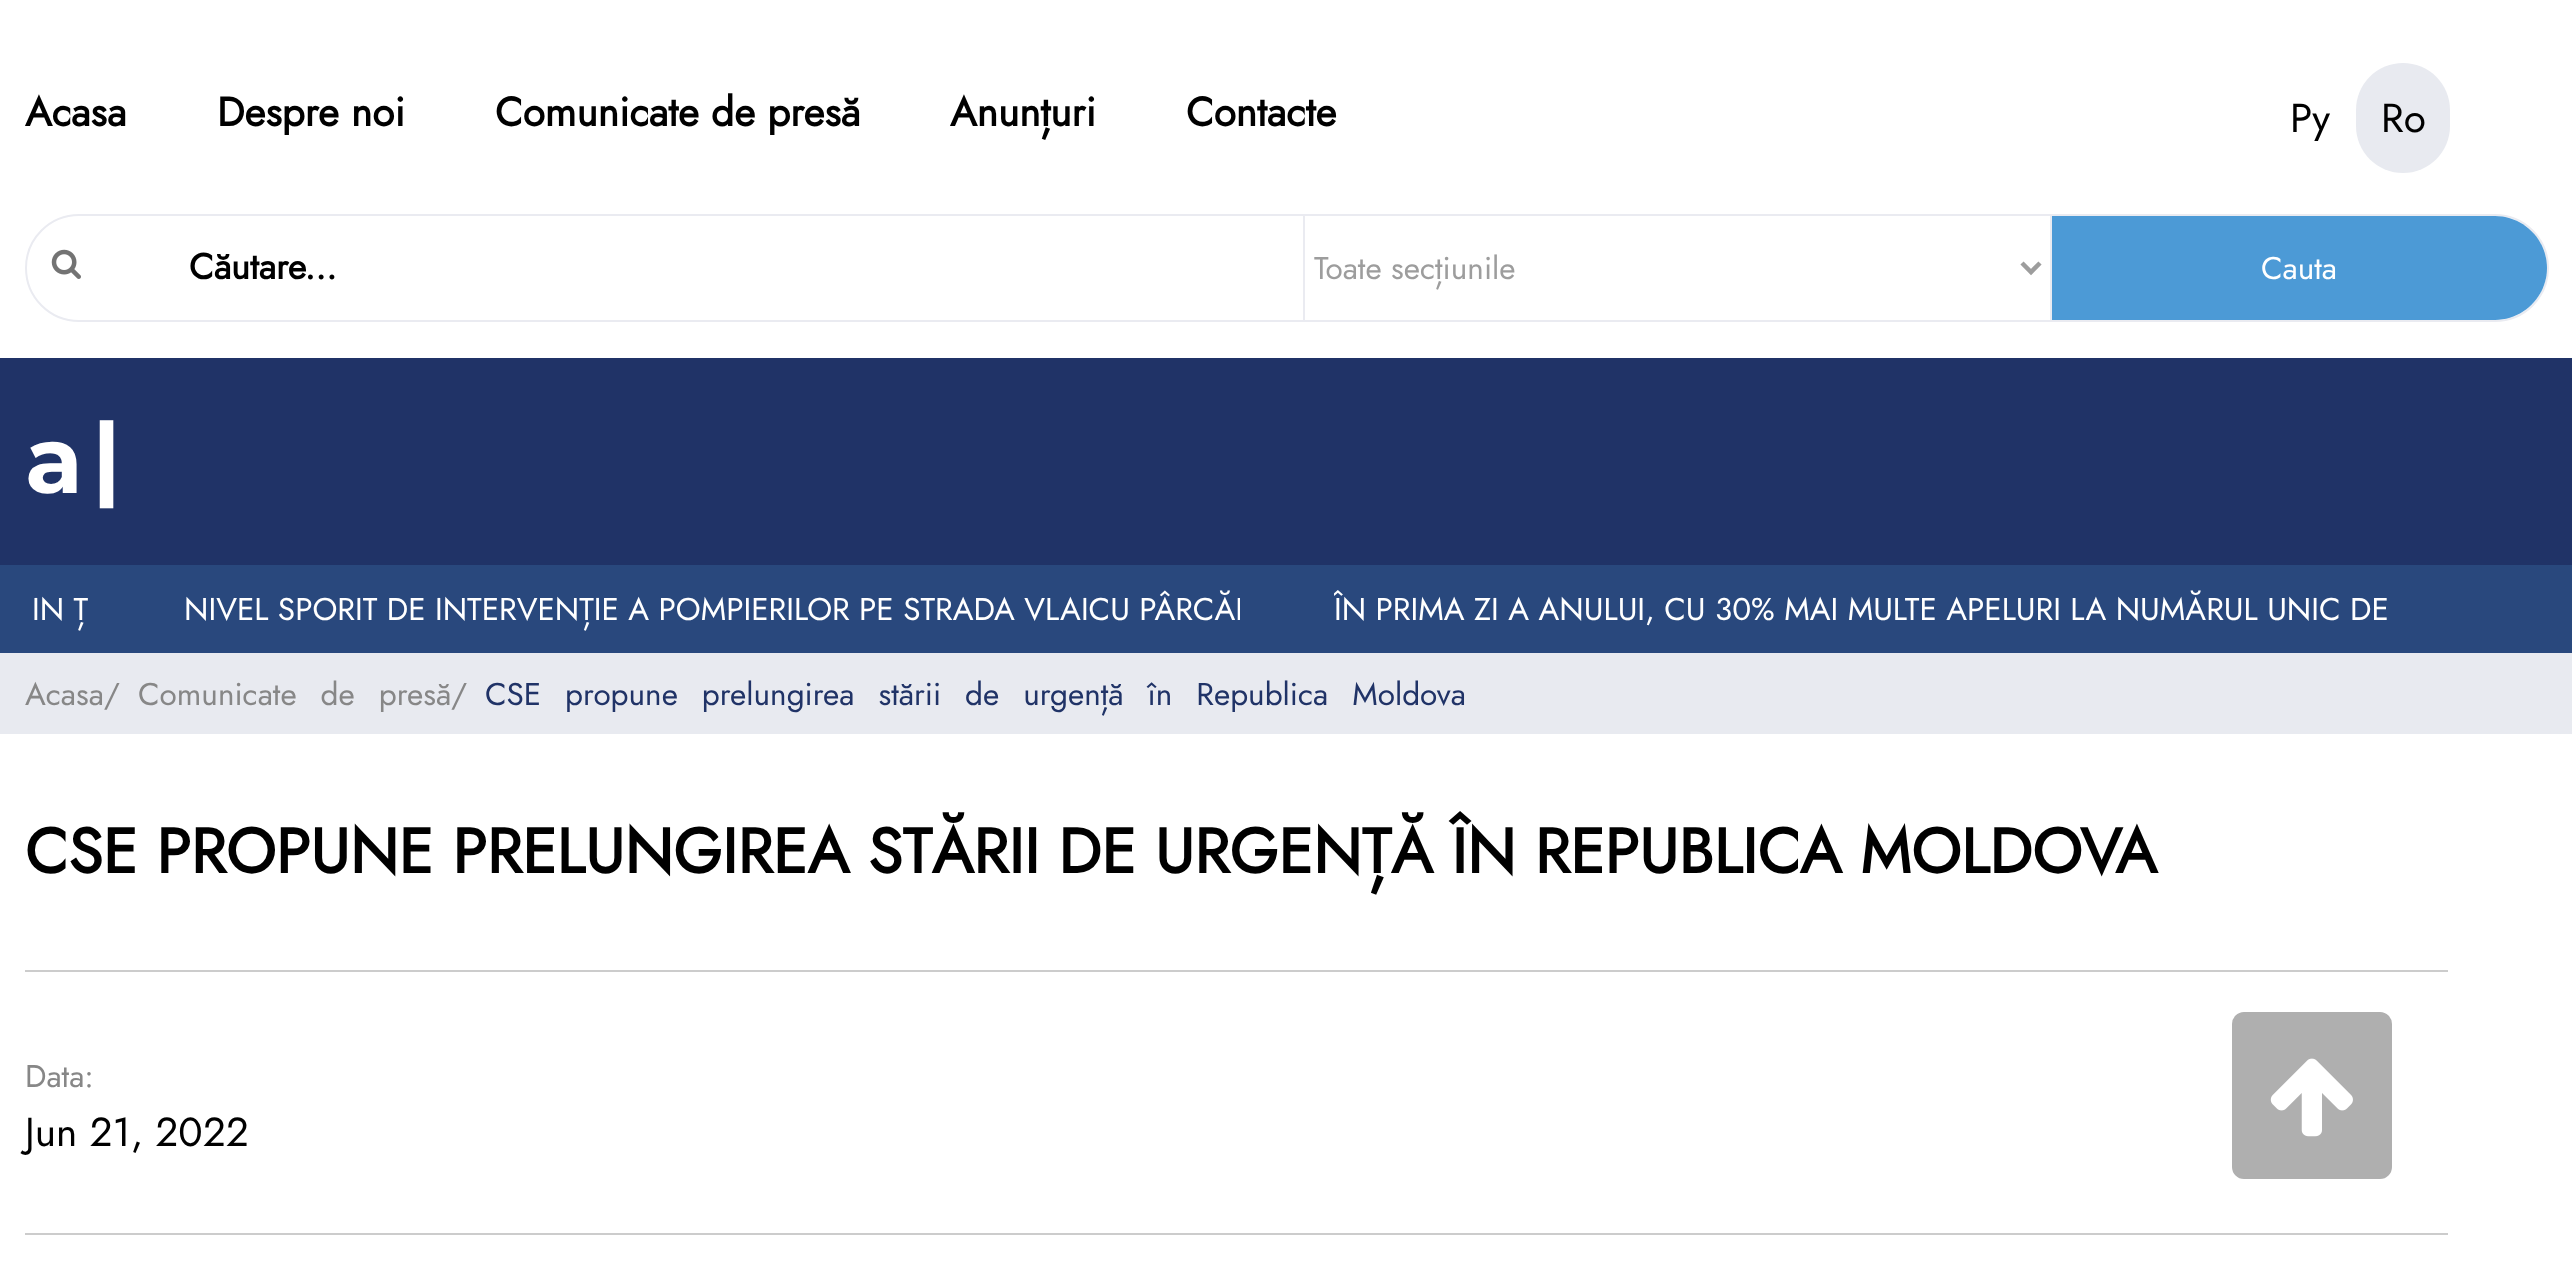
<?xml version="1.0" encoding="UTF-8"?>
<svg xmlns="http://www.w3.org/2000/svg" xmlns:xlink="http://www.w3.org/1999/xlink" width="2572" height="1270">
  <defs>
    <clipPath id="clip1"><rect x="185" y="587" width="1055" height="45" /></clipPath>
    <clipPath id="clip2"><rect x="1334" y="587" width="1056" height="45" /></clipPath>
  </defs>
  <rect width="100%" height="100%" fill="#ffffff" />
  <rect x="26" y="215" width="2522" height="106" rx="53" fill="none" stroke="#eaebf1" stroke-width="2" />
  <image x="51" y="249" width="30" height="30" xlink:href="image1.png" />
  <rect x="1303" y="216" width="2" height="104" fill="#eaebf1" />
  <path d="M 2022 263 l 9 9 l 9 -9" fill="none" stroke="#9d9d9d" stroke-width="4.5" />
  <path d="M 2050 216 h 445 c 28.5 0 52 23.5 52 52 c 0 28.5 -23.5 52 -52 52 h -445 z" fill="#4c9ad6" />
  <rect x="2050" y="216" width="2" height="104" fill="#eaebf1" />
  <rect x="2356" y="63" width="94" height="110" rx="47" fill="#e8eaf0" />
  <rect y="358" width="2572" height="207" fill="#203367" />
  <rect y="565" width="2572" height="88" fill="#29487d" />
  <rect y="653" width="2572" height="81" fill="#e8eaf0" />
  <rect x="25" y="970" width="2423" height="2" fill="#cccccc" />
  <rect x="25" y="1233" width="2423" height="2" fill="#cccccc" />
  <rect x="2231" y="1011" width="162" height="169" rx="13" fill="#afafaf" stroke="#ffffff" stroke-width="2" />
  <image x="2270" y="1058" width="83" height="79" xlink:href="image2.png" />
  <text x="25" y="126" style="font-family: Jost; font-size: 40.5px; font-weight: bold; fill: #000000">Acasa</text>
  <text x="217" y="126" style="font-family: Jost; font-size: 40.5px; font-weight: bold; fill: #000000">Despre noi</text>
  <text x="495" y="126" style="font-family: Jost; font-size: 40.5px; font-weight: bold; fill: #000000">Comunicate de presă</text>
  <text x="950" y="126" style="font-family: Jost; font-size: 40.5px; font-weight: bold; fill: #000000">Anunțuri</text>
  <text x="1186" y="126" style="font-family: Jost; font-size: 40.5px; font-weight: bold; fill: #000000">Contacte</text>
  <text x="189" y="279" style="font-family: Jost; font-size: 36px; font-weight: bold; fill: #000000">Căutare...</text>
  <text x="1314" y="279" style="font-family: Jost; font-size: 31.5px; fill: #9d9d9d">Toate secțiunile</text>
  <text x="2261" y="279" style="font-family: Jost; font-size: 31.5px; fill: #ffffff">Cauta</text>
  <text x="2290" y="132" style="font-family: Jost; font-size: 40.5px; fill: #000000">Ру</text>
  <text x="2381" y="132" style="font-family: Jost; font-size: 40.5px; fill: #000000">Ro</text>
  <text x="25" y="493" style="font-family: Montserrat; font-size: 94px; font-weight: bold; letter-spacing: -7px; fill: #ffffff">a</text>
  <text x="92" y="490" style="font-family: Montserrat; font-size: 94px; font-weight: bold; letter-spacing: -7px; fill: #ffffff">|</text>
  <text x="32" y="620" style="font-family: Jost; font-size: 31.5px; fill: #ffffff">IN Ț</text>
  <g clip-path="url(#clip1)">
    <text x="184" y="620" style="font-family: Jost; font-size: 31.5px; fill: #ffffff">NIVEL SPORIT DE INTERVENȚIE A POMPIERILOR PE STRADA VLAICU PÂRCĂL</text>
  </g>
  <g clip-path="url(#clip2)">
    <text x="1334" y="620" style="font-family: Jost; font-size: 31.5px; fill: #ffffff">ÎN PRIMA ZI A ANULUI, CU 30% MAI MULTE APELURI LA NUMĂRUL UNIC DE</text>
  </g>
  <text x="25" y="705" style="font-family: Jost; font-size: 31.5px; fill: #878787">Acasa/</text>
  <text x="138" y="705" word-spacing="14.5" style="font-family: Jost; font-size: 31.5px; fill: #878787">Comunicate de presă</text>
  <text x="451" y="705" style="font-family: Jost; font-size: 31.5px; fill: #878787">/</text>
  <text x="485" y="705" word-spacing="14.5" style="font-family: Jost; font-size: 31.5px; fill: #203367">CSE propune prelungirea stării de urgență în Republica Moldova</text>
  <text x="25" y="873" style="font-family: Jost; font-size: 63px; font-weight: bold; fill: #000000">CSE PROPUNE PRELUNGIREA STĂRII DE URGENȚĂ ÎN REPUBLICA MOLDOVA</text>
  <text x="25" y="1087" style="font-family: Jost; font-size: 31.5px; fill: #878787">Data:</text>
  <text x="25" y="1146" style="font-family: Jost; font-size: 40.5px; fill: #000000">Jun 21, 2022</text>
</svg>
